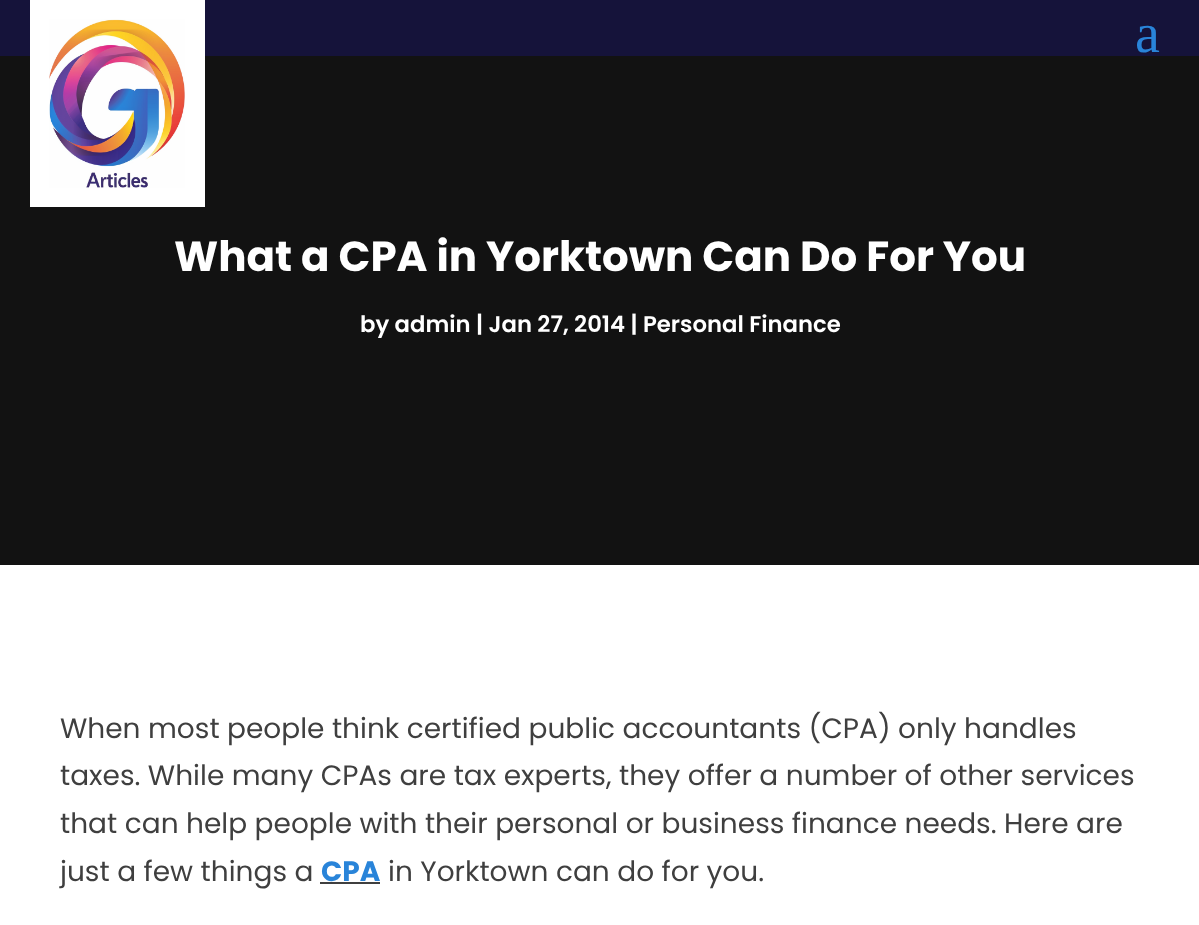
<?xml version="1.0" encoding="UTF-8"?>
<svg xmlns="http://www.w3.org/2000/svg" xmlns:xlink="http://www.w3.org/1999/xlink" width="1199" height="925">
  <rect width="100%" height="100%" fill="#ffffff" />
  <rect width="1199" height="56" fill="#15133a" />
  <rect y="56" width="1199" height="509" fill="#121212" />
  <rect x="30" width="175" height="207" fill="#ffffff" />
  <image x="49" y="19" width="136" height="169" xlink:href="image1.png" />
  <rect x="320" y="882" width="60" height="2" fill="#3f3f3f" />
  <text x="1135" y="52" style="font-family: Liberation Serif; font-size: 56px; fill: #2984d9">a</text>
  <text x="174" y="271" style="font-family: Poppins; font-size: 42px; font-weight: bold; fill: #ffffff">What a CPA in Yorktown Can Do For You</text>
  <text x="360" y="332" style="font-family: Poppins; font-size: 22.75px; font-weight: 600; fill: #ffffff">by admin | Jan 27, 2014 | Personal Finance</text>
  <text x="60" y="738" style="font-family: Poppins; font-size: 28px; fill: #3f3f3f">When most people think certified public accountants (CPA) only handles</text>
  <text x="60" y="785" style="font-family: Poppins; font-size: 28px; fill: #3f3f3f">taxes. While many CPAs are tax experts, they offer a number of other services</text>
  <text x="60" y="833" style="font-family: Poppins; font-size: 28px; fill: #3f3f3f">that can help people with their personal or business finance needs. Here are</text>
  <text x="60" y="881" style="font-family: Poppins; font-size: 28px; fill: #3f3f3f">just a few things a</text>
  <text x="321" y="881" style="font-family: Poppins; font-size: 28px; font-weight: bold; fill: #2984d9">CPA</text>
  <text x="388" y="881" style="font-family: Poppins; font-size: 28px; fill: #3f3f3f">in Yorktown can do for you.</text>
</svg>
